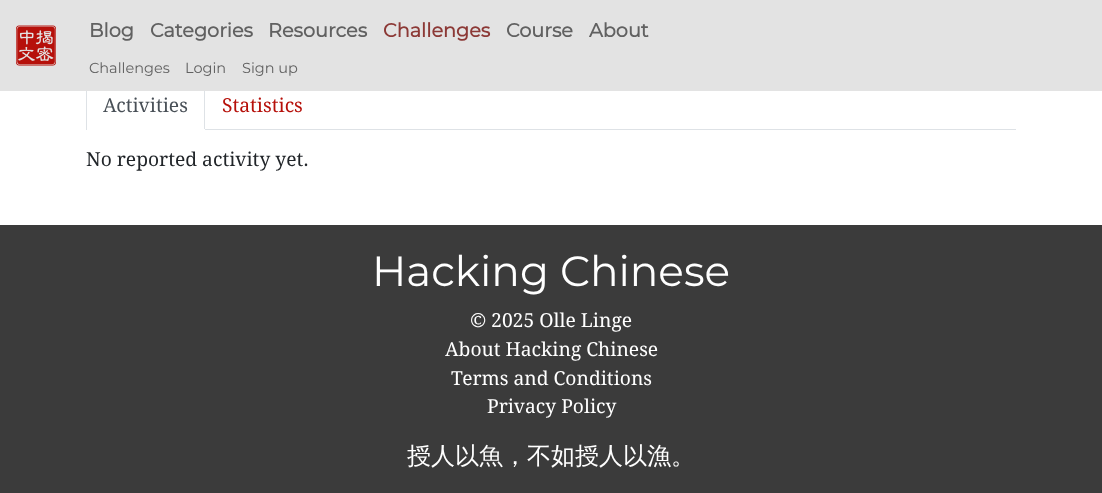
<?xml version="1.0" encoding="UTF-8"?>
<svg xmlns="http://www.w3.org/2000/svg" xmlns:xlink="http://www.w3.org/1999/xlink" width="1102" height="493">
  <rect width="100%" height="100%" fill="#ffffff" />
  <rect x="204" y="83" width="1" height="47" fill="#dee2e6" />
  <rect x="86" y="83" width="1" height="47" fill="#dee2e6" />
  <rect width="1102" height="91" fill="#e3e3e3" />
  <image x="16" y="25" width="40" height="41" xlink:href="image1.png" />
  <rect x="205" y="129" width="811" height="1" fill="#dee2e6" />
  <rect x="204" y="129" width="1" height="1" fill="#ffffff" />
  <rect y="225" width="1102" height="268" fill="#3b3b3b" />
  <text x="89" y="37" style="font-family: Montserrat; font-size: 19.25px; font-weight: bold; fill: #616161">Blog</text>
  <text x="150" y="37" style="font-family: Montserrat; font-size: 19.25px; font-weight: bold; fill: #616161">Categories</text>
  <text x="268" y="37" style="font-family: Montserrat; font-size: 19.25px; font-weight: bold; fill: #616161">Resources</text>
  <text x="383" y="37" style="font-family: Montserrat; font-size: 19.25px; font-weight: bold; fill: #8c3936">Challenges</text>
  <text x="506" y="37" style="font-family: Montserrat; font-size: 19.25px; font-weight: bold; fill: #616161">Course</text>
  <text x="589" y="37" style="font-family: Montserrat; font-size: 19.25px; font-weight: bold; fill: #616161">About</text>
  <text x="89" y="73" style="font-family: Montserrat; font-size: 14.5px; font-weight: 100; fill: #616161">Challenges</text>
  <text x="185" y="73" style="font-family: Montserrat; font-size: 14.5px; font-weight: 100; fill: #616161">Login</text>
  <text x="242" y="73" style="font-family: Montserrat; font-size: 14.5px; font-weight: 100; fill: #616161">Sign up</text>
  <text x="103" y="112" style="font-family: Droid Serif; font-size: 19.25px; fill: #495057">Activities</text>
  <text x="222" y="112" style="font-family: Droid Serif; font-size: 19.25px; fill: #b6100a">Statistics</text>
  <text x="86" y="166" style="font-family: Droid Serif; font-size: 19.25px; fill: #212529">No reported activity yet.</text>
  <text x="372" y="286" style="font-family: Montserrat; font-size: 42.25px; font-weight: 100; fill: #ffffff">Hacking Chinese</text>
  <text x="470" y="327" style="font-family: Droid Serif; font-size: 19.25px; fill: #ffffff">© 2025 Olle Linge</text>
  <text x="445" y="356" style="font-family: Droid Serif; font-size: 19.25px; fill: #ffffff">About Hacking Chinese</text>
  <text x="451" y="385" style="font-family: Droid Serif; font-size: 19.25px; fill: #ffffff">Terms and Conditions</text>
  <text x="487" y="413" style="font-family: Droid Serif; font-size: 19.25px; fill: #ffffff">Privacy Policy</text>
  <text x="407" y="464" style="font-family: WenQuanYi Zen Hei; font-size: 24px; font-weight: 500; fill: #ffffff">授人以魚，不如授人以漁。</text>
</svg>
